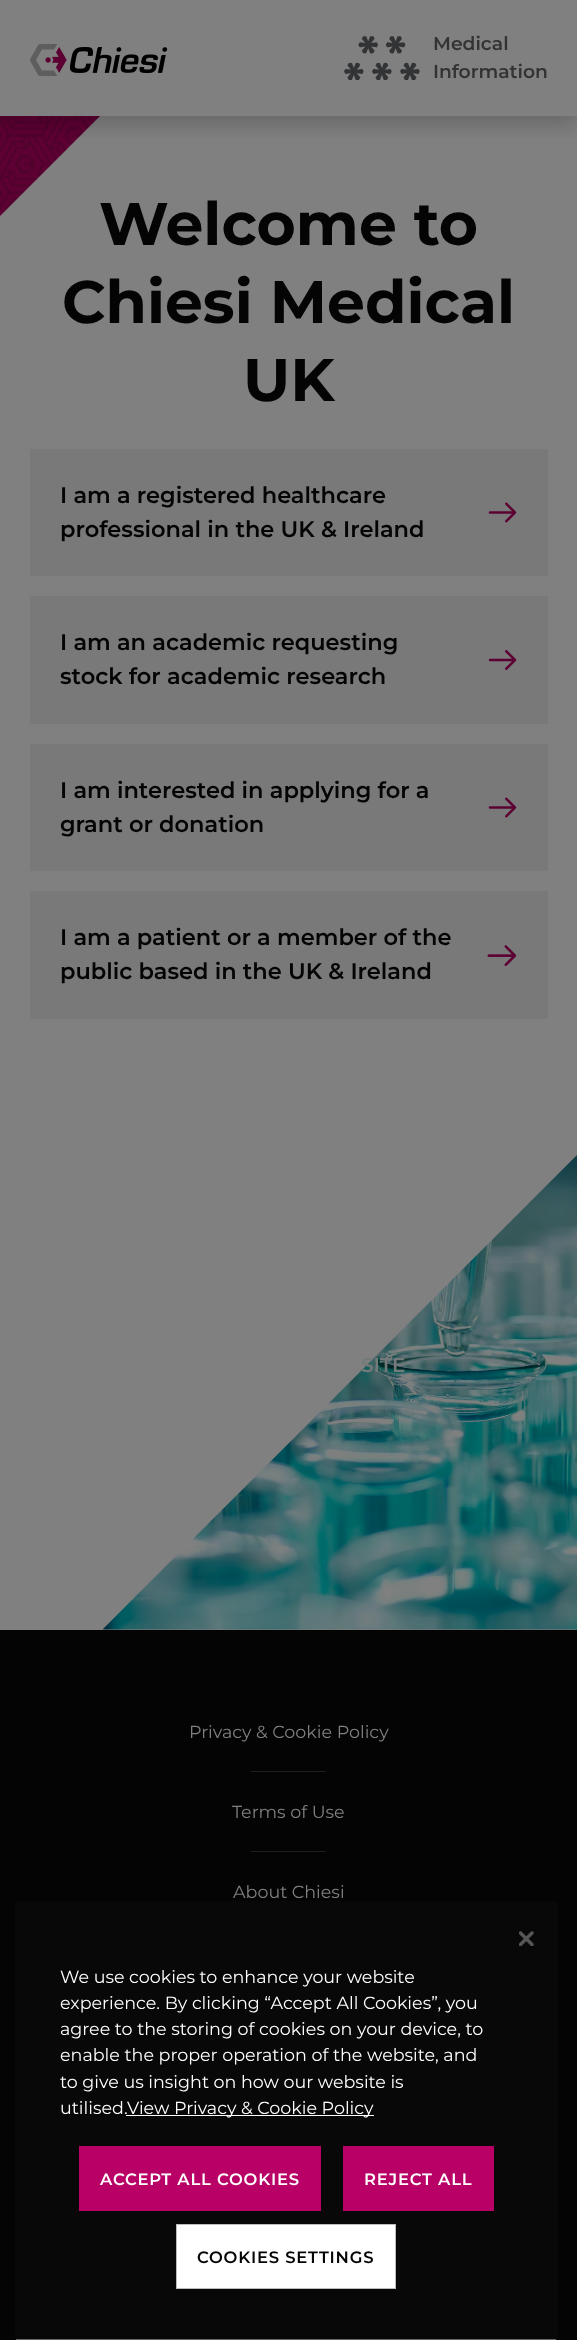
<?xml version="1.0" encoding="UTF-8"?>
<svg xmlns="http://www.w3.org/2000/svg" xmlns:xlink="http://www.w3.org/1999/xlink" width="577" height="2340">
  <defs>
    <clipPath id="clip1"><rect x="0" y="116" width="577" height="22" /></clipPath>
  </defs>
  <rect width="100%" height="100%" fill="#808080" />
  <path d="M 0 116 v 100 l 100 -100 z" fill="#5d0033" />
  <image x="0" y="116" width="99" height="96" xlink:href="image3.png" />
  <g clip-path="url(#clip1)">
    <rect y="8" width="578" height="116" fill="#000000" fill-opacity="0.2" filter="blur(11px)" />
  </g>
  <image x="30" y="44" width="138" height="32" xlink:href="image1.png" />
  <image x="344" y="36" width="76" height="44" xlink:href="image2.png" />
  <rect x="30" y="449" width="518" height="127" fill="#797979" />
  <image x="488" y="502" width="29" height="21" xlink:href="image4.png" />
  <rect x="30" y="596" width="518" height="128" fill="#797979" />
  <image x="488" y="650" width="29" height="20" xlink:href="image5.png" />
  <rect x="30" y="744" width="518" height="127" fill="#797979" />
  <image x="488" y="797" width="29" height="21" xlink:href="image4.png" />
  <rect x="30" y="891" width="518" height="128" fill="#797979" />
  <image x="487" y="945" width="30" height="21" xlink:href="image6.png" />
  <image x="102" y="1155" width="475" height="475" xlink:href="image7.png" />
  <rect y="1630" width="577" height="710" fill="#050404" />
  <rect x="251" y="1771" width="75" height="1" fill="#1d1d1d" />
  <rect x="251" y="1851" width="75" height="1" fill="#1d1d1d" />
  <rect x="15" y="1901" width="543" height="439" rx="3" fill="#090808" />
  <rect x="16" y="2339" width="540" height="1" fill="#63666a" />
  <image x="519" y="1931" width="15" height="15" xlink:href="image8.png" />
  <rect x="126" y="2115" width="248" height="1" fill="#ffffff" />
  <rect x="79" y="2146" width="242" height="65" fill="#b90066" />
  <rect x="343" y="2146" width="151" height="65" fill="#b90066" />
  <rect x="176.5" y="2224.5" width="219" height="64" fill="#ffffff" stroke="#bbbcbc" />
  <text x="433" y="50" style="font-family: Montserrat; font-size: 18.75px; font-weight: 600; fill: #323335">Medical</text>
  <text x="433" y="78" style="font-family: Montserrat; font-size: 18.75px; font-weight: 600; fill: #323335">Information</text>
  <text x="99" y="245" style="font-family: Montserrat; font-size: 60px; font-weight: bold; fill: #050404">Welcome to</text>
  <text x="62" y="323" style="font-family: Montserrat; font-size: 60px; font-weight: bold; fill: #050404">Chiesi Medical</text>
  <text x="243" y="401" style="font-family: Montserrat; font-size: 60px; font-weight: bold; fill: #050404">UK</text>
  <text x="60" y="503" style="font-family: Montserrat; font-size: 22.5px; font-weight: 600; fill: #050404">I am a registered healthcare</text>
  <text x="60" y="537" style="font-family: Montserrat; font-size: 22.5px; font-weight: 600; fill: #050404">professional in the UK &amp; Ireland</text>
  <text x="60" y="650" style="font-family: Montserrat; font-size: 22.5px; font-weight: 600; fill: #050404">I am an academic requesting</text>
  <text x="60" y="684" style="font-family: Montserrat; font-size: 22.5px; font-weight: 600; fill: #050404">stock for academic research</text>
  <text x="60" y="798" style="font-family: Montserrat; font-size: 22.5px; font-weight: 600; fill: #050404">I am interested in applying for a</text>
  <text x="60" y="832" style="font-family: Montserrat; font-size: 22.5px; font-weight: 600; fill: #050404">grant or donation</text>
  <text x="60" y="945" style="font-family: Montserrat; font-size: 22.5px; font-weight: 600; fill: #050404">I am a patient or a member of the</text>
  <text x="60" y="979" style="font-family: Montserrat; font-size: 22.5px; font-weight: 600; fill: #050404">public based in the UK &amp; Ireland</text>
  <text x="361" y="1372" style="font-family: Montserrat; font-size: 20px; font-weight: 600; fill: #747a7a">SITE</text>
  <text x="189" y="1738" style="font-family: Montserrat; font-size: 17.5px; fill: #808080">Privacy &amp; Cookie Policy</text>
  <text x="232" y="1818" style="font-family: Montserrat; font-size: 17.5px; fill: #808080">Terms of Use</text>
  <text x="233" y="1898" style="font-family: Montserrat; font-size: 17.5px; fill: #808080">About Chiesi</text>
  <text x="60" y="1983" style="font-family: Montserrat; font-size: 17.5px; fill: #ffffff">We use cookies to enhance your website</text>
  <text x="60" y="2009" style="font-family: Montserrat; font-size: 17.5px; fill: #ffffff">experience. By clicking “Accept All Cookies”, you</text>
  <text x="60" y="2035" style="font-family: Montserrat; font-size: 17.5px; fill: #ffffff">agree to the storing of cookies on your device, to</text>
  <text x="60" y="2061" style="font-family: Montserrat; font-size: 17.5px; fill: #ffffff">enable the proper operation of the website, and</text>
  <text x="60" y="2088" style="font-family: Montserrat; font-size: 17.5px; fill: #ffffff">to give us insight on how our website is</text>
  <text x="60" y="2114" style="font-family: Montserrat; font-size: 17.5px; fill: #ffffff">utilised.</text>
  <text x="127" y="2114" style="font-family: Montserrat; font-size: 17.5px; fill: #ffffff">View Privacy &amp; Cookie Policy</text>
  <text x="100" y="2185" style="font-family: Montserrat; font-size: 16.4px; font-weight: 600; letter-spacing: 0.8px; fill: #ffffff">ACCEPT ALL COOKIES</text>
  <text x="364" y="2185" style="font-family: Montserrat; font-size: 16.4px; font-weight: 600; letter-spacing: 0.8px; fill: #ffffff">REJECT ALL</text>
  <text x="197" y="2263" style="font-family: Montserrat; font-size: 16.4px; font-weight: 600; letter-spacing: 0.8px; fill: #050404">COOKIES SETTINGS</text>
</svg>
